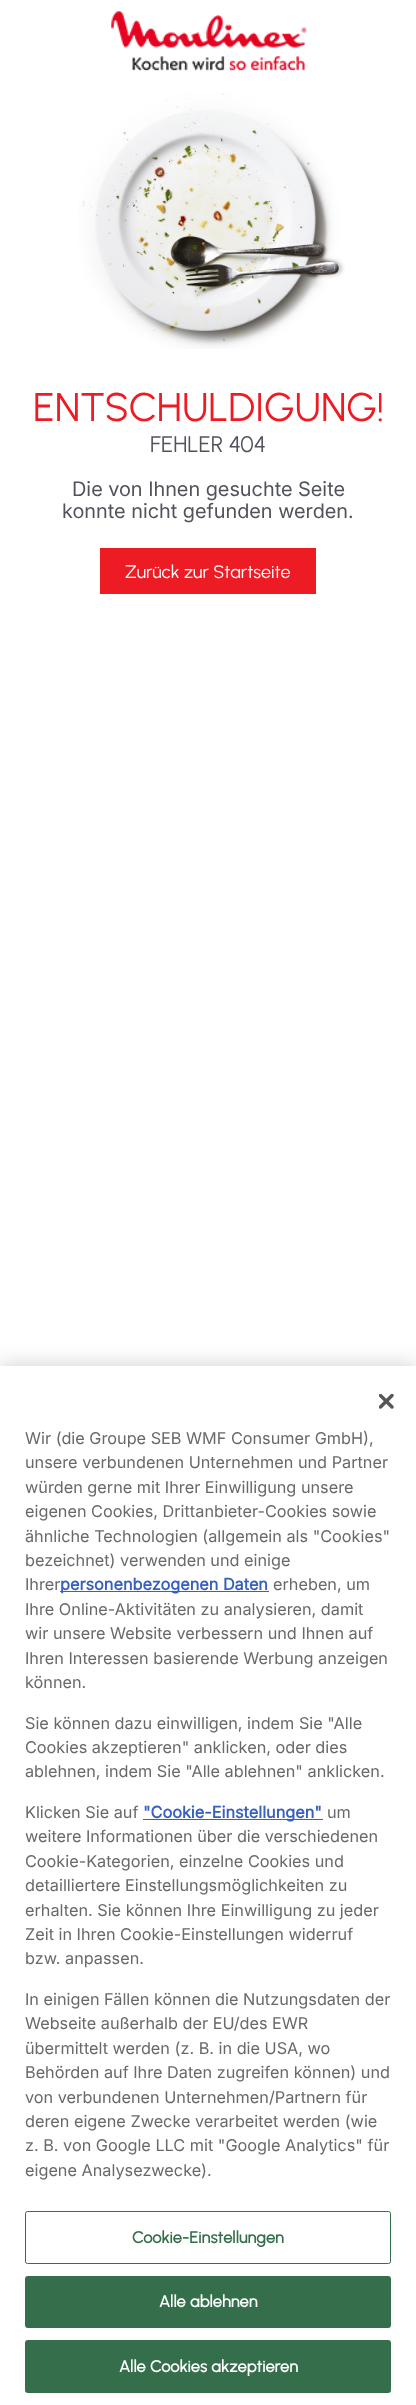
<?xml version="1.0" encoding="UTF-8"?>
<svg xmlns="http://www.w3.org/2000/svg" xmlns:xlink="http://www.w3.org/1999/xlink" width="416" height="2405">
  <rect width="100%" height="100%" fill="#ffffff" />
  <image x="111" y="11" width="196" height="60" xlink:href="image1.png" />
  <image x="78" y="93" width="267" height="256" xlink:href="image2.png" />
  <rect x="100" y="548" width="216" height="46" fill="#ed1c24" />
  <rect y="1366" width="416" height="1039" fill="#000000" fill-opacity="0.2" filter="blur(11px)" />
  <rect y="1366" width="416" height="1039" fill="#ffffff" />
  <image x="379" y="1394" width="15" height="15" xlink:href="image3.png" />
  <rect x="60" y="1591" width="209" height="1" fill="#3860be" />
  <rect x="143" y="1819" width="180" height="1" fill="#3860be" />
  <rect x="25.5" y="2211.5" width="365" height="52" rx="2" fill="none" stroke="#346e4a" />
  <rect x="25.5" y="2276.5" width="365" height="51" rx="2" fill="#346e4a" stroke="#346e4a" />
  <rect x="25.5" y="2340.5" width="365" height="52" rx="2" fill="#346e4a" stroke="#346e4a" />
  <text x="33" y="421" style="font-family: Urbanist; font-size: 40px; fill: #ed1c24">ENTSCHULDIGUNG!</text>
  <text x="150" y="452" style="font-family: Urbanist; font-size: 22.5px; fill: #51535b">FEHLER 404</text>
  <text x="72" y="496" style="font-family: Inter; font-size: 20px; fill: #51535b">Die von Ihnen gesuchte Seite</text>
  <text x="62" y="518" style="font-family: Inter; font-size: 20px; fill: #51535b">konnte nicht gefunden werden.</text>
  <text x="125" y="578" style="font-family: Urbanist; font-size: 18.1px; fill: #ffffff">Zurück zur Startseite</text>
  <text x="25" y="1444" style="font-family: 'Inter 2'; font-size: 16.25px; fill: #696969">Wir (die Groupe SEB WMF Consumer GmbH),</text>
  <text x="25" y="1468" style="font-family: 'Inter 2'; font-size: 16.25px; fill: #696969">unsere verbundenen Unternehmen und Partner</text>
  <text x="25" y="1493" style="font-family: 'Inter 2'; font-size: 16.25px; fill: #696969">würden gerne mit Ihrer Einwilligung unsere</text>
  <text x="25" y="1517" style="font-family: 'Inter 2'; font-size: 16.25px; fill: #696969">eigenen Cookies, Drittanbieter-Cookies sowie</text>
  <text x="25" y="1542" style="font-family: 'Inter 2'; font-size: 16.25px; fill: #696969">ähnliche Technologien (allgemein als "Cookies"</text>
  <text x="25" y="1566" style="font-family: 'Inter 2'; font-size: 16.25px; fill: #696969">bezeichnet) verwenden und einige</text>
  <text x="25" y="1590" style="font-family: 'Inter 2'; font-size: 16.25px; fill: #696969">Ihrer</text>
  <text x="60" y="1590" style="font-family: Inter; font-size: 16.25px; font-weight: bold; fill: #3860be">personenbezogenen Daten</text>
  <text x="273" y="1590" style="font-family: 'Inter 2'; font-size: 16.25px; fill: #696969">erheben, um</text>
  <text x="25" y="1615" style="font-family: 'Inter 2'; font-size: 16.25px; fill: #696969">Ihre Online-Aktivitäten zu analysieren, damit</text>
  <text x="25" y="1639" style="font-family: 'Inter 2'; font-size: 16.25px; fill: #696969">wir unsere Website verbessern und Ihnen auf</text>
  <text x="25" y="1664" style="font-family: 'Inter 2'; font-size: 16.25px; fill: #696969">Ihren Interessen basierende Werbung anzeigen</text>
  <text x="25" y="1688" style="font-family: 'Inter 2'; font-size: 16.25px; fill: #696969">können.</text>
  <text x="25" y="1729" style="font-family: 'Inter 2'; font-size: 16.25px; fill: #696969">Sie können dazu einwilligen, indem Sie "Alle</text>
  <text x="25" y="1753" style="font-family: 'Inter 2'; font-size: 16.25px; fill: #696969">Cookies akzeptieren" anklicken, oder dies</text>
  <text x="25" y="1777" style="font-family: 'Inter 2'; font-size: 16.25px; fill: #696969">ablehnen, indem Sie "Alle ablehnen" anklicken.</text>
  <text x="25" y="1818" style="font-family: 'Inter 2'; font-size: 16.25px; fill: #696969">Klicken Sie auf</text>
  <text x="143" y="1818" style="font-family: Inter; font-size: 16.25px; font-weight: bold; fill: #3860be">"Cookie-Einstellungen"</text>
  <text x="327" y="1818" style="font-family: 'Inter 2'; font-size: 16.25px; fill: #696969">um</text>
  <text x="25" y="1842" style="font-family: 'Inter 2'; font-size: 16.25px; fill: #696969">weitere Informationen über die verschiedenen</text>
  <text x="25" y="1867" style="font-family: 'Inter 2'; font-size: 16.25px; fill: #696969">Cookie-Kategorien, einzelne Cookies und</text>
  <text x="25" y="1891" style="font-family: 'Inter 2'; font-size: 16.25px; fill: #696969">detailliertere Einstellungsmöglichkeiten zu</text>
  <text x="25" y="1916" style="font-family: 'Inter 2'; font-size: 16.25px; fill: #696969">erhalten. Sie können Ihre Einwilligung zu jeder</text>
  <text x="25" y="1940" style="font-family: 'Inter 2'; font-size: 16.25px; fill: #696969">Zeit in Ihren Cookie-Einstellungen widerruf</text>
  <text x="25" y="1964" style="font-family: 'Inter 2'; font-size: 16.25px; fill: #696969">bzw. anpassen.</text>
  <text x="25" y="2005" style="font-family: 'Inter 2'; font-size: 16.25px; fill: #696969">In einigen Fällen können die Nutzungsdaten der</text>
  <text x="25" y="2029" style="font-family: 'Inter 2'; font-size: 16.25px; fill: #696969">Webseite außerhalb der EU/des EWR</text>
  <text x="25" y="2054" style="font-family: 'Inter 2'; font-size: 16.25px; fill: #696969">übermittelt werden (z. B. in die USA, wo</text>
  <text x="25" y="2078" style="font-family: 'Inter 2'; font-size: 16.25px; fill: #696969">Behörden auf Ihre Daten zugreifen können) und</text>
  <text x="25" y="2103" style="font-family: 'Inter 2'; font-size: 16.25px; fill: #696969">von verbundenen Unternehmen/Partnern für</text>
  <text x="25" y="2127" style="font-family: 'Inter 2'; font-size: 16.25px; fill: #696969">deren eigene Zwecke verarbeitet werden (wie</text>
  <text x="25" y="2151" style="font-family: 'Inter 2'; font-size: 16.25px; fill: #696969">z. B. von Google LLC mit "Google Analytics" für</text>
  <text x="25" y="2176" style="font-family: 'Inter 2'; font-size: 16.25px; fill: #696969">eigene Analysezwecke).</text>
  <text x="132" y="2243" style="font-family: Urbanist; font-size: 16.25px; font-weight: bold; letter-spacing: 0.2px; fill: #346e4a">Cookie-Einstellungen</text>
  <text x="159" y="2307" style="font-family: Urbanist; font-size: 16.25px; font-weight: bold; letter-spacing: 0.2px; fill: #ffffff">Alle ablehnen</text>
  <text x="119" y="2372" style="font-family: Urbanist; font-size: 16.25px; font-weight: bold; letter-spacing: 0.2px; fill: #ffffff">Alle Cookies akzeptieren</text>
</svg>
